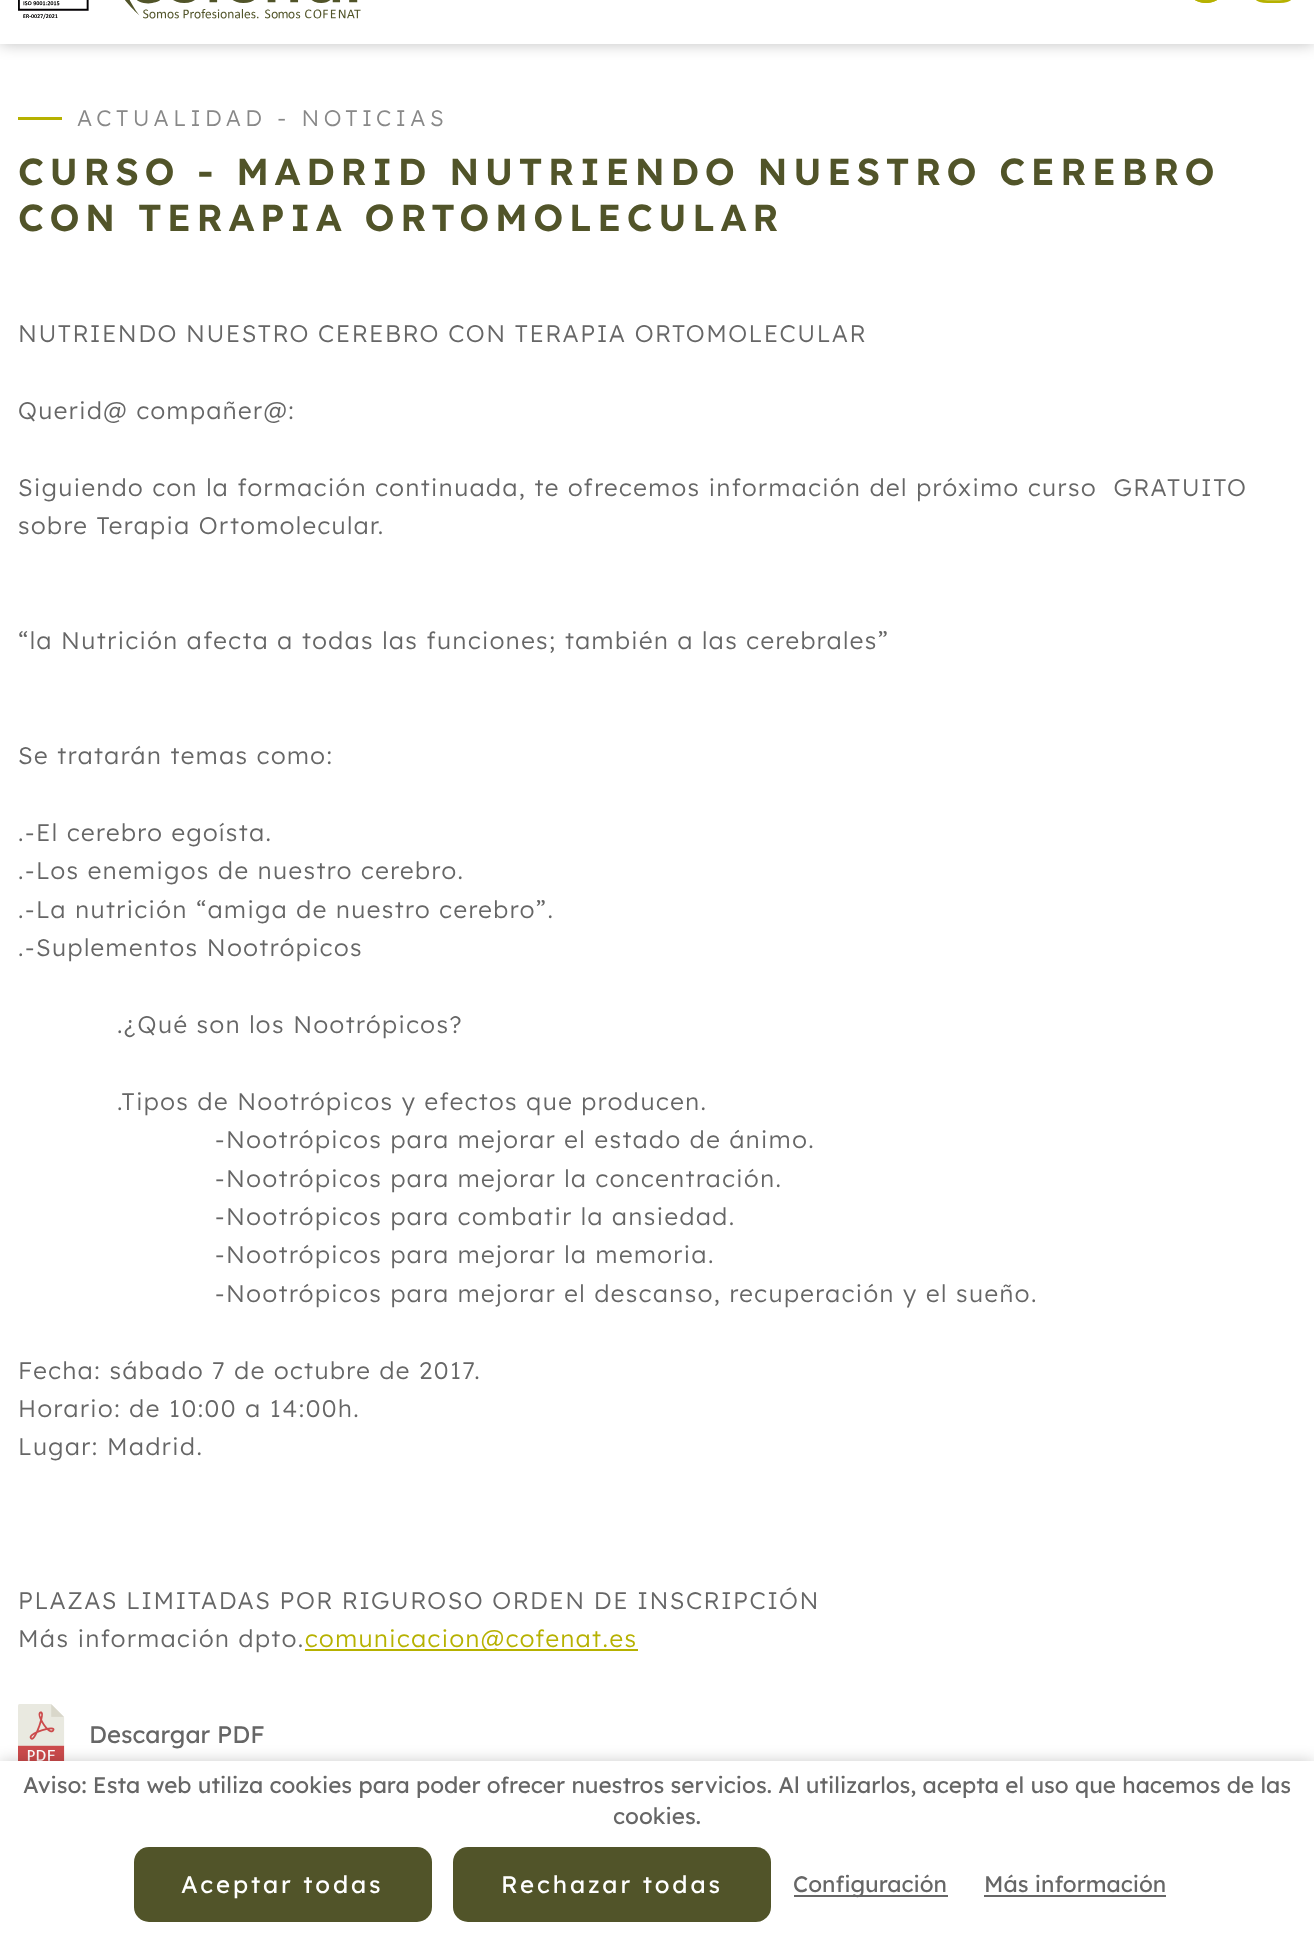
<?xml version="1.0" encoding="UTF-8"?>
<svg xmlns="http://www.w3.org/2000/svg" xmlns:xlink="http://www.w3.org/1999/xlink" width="1314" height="1936">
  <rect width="100%" height="100%" fill="#ffffff" />
  <rect y="-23" width="1314" height="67" fill="#000000" fill-opacity="0.25" filter="blur(7.5px)" />
  <rect width="1314" height="44" fill="#ffffff" />
  <image x="18" y="0" width="343" height="19" xlink:href="image1.png" />
  <image x="1195" y="0" width="22" height="3" xlink:href="image2.png" />
  <image x="1256" y="0" width="35" height="3" xlink:href="image3.png" />
  <rect x="18" y="117" width="44" height="3" fill="#b6b100" />
  <rect x="305" y="1649" width="333" height="2" fill="#b6b100" />
  <image x="18" y="1704" width="47" height="57" xlink:href="image4.png" />
  <rect y="1761" width="1314" height="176" fill="#000000" fill-opacity="0.2" filter="blur(7.5px)" />
  <rect y="1761" width="1314" height="175" fill="#ffffff" />
  <rect x="134" y="1847" width="298" height="75" rx="15" fill="#515429" />
  <rect x="453" y="1847" width="318" height="75" rx="15" fill="#515429" />
  <rect x="794" y="1895" width="154" height="2" fill="#666666" />
  <rect x="984" y="1895" width="182" height="2" fill="#666666" />
  <text x="77" y="126" style="font-family: Lexend; font-size: 22.5px; font-weight: 300; letter-spacing: 4.5px; fill: #888888">ACTUALIDAD - NOTICIAS</text>
  <text x="18" y="185" style="font-family: Lexend; font-size: 37.5px; font-weight: 600; letter-spacing: 5.6px; fill: #515429">CURSO - MADRID NUTRIENDO NUESTRO CEREBRO</text>
  <text x="18" y="231" style="font-family: Lexend; font-size: 37.5px; font-weight: 600; letter-spacing: 5.6px; fill: #515429">CON TERAPIA ORTOMOLECULAR</text>
  <text x="18" y="342" style="font-family: Lexend; font-size: 24px; font-weight: 300; letter-spacing: 1.5px; fill: #666666">NUTRIENDO NUESTRO CEREBRO CON TERAPIA ORTOMOLECULAR</text>
  <text x="18" y="419" style="font-family: Lexend; font-size: 24px; font-weight: 300; letter-spacing: 1.5px; fill: #666666">Querid@ compañer@:</text>
  <text x="18" y="496" style="font-family: Lexend; font-size: 24px; font-weight: 300; letter-spacing: 1.5px; fill: #666666" xml:space="preserve">Siguiendo con la formación continuada, te ofrecemos información del próximo curso  GRATUITO</text>
  <text x="18" y="534" style="font-family: Lexend; font-size: 24px; font-weight: 300; letter-spacing: 1.5px; fill: #666666">sobre Terapia Ortomolecular.</text>
  <text x="18" y="649" style="font-family: Lexend; font-size: 24px; font-weight: 300; letter-spacing: 1.5px; fill: #666666">“la Nutrición afecta a todas las funciones; también a las cerebrales”</text>
  <text x="18" y="764" style="font-family: Lexend; font-size: 24px; font-weight: 300; letter-spacing: 1.5px; fill: #666666">Se tratarán temas como:</text>
  <text x="18" y="841" style="font-family: Lexend; font-size: 24px; font-weight: 300; letter-spacing: 1.5px; fill: #666666">.-El cerebro egoísta.</text>
  <text x="18" y="879" style="font-family: Lexend; font-size: 24px; font-weight: 300; letter-spacing: 1.5px; fill: #666666">.-Los enemigos de nuestro cerebro.</text>
  <text x="18" y="918" style="font-family: Lexend; font-size: 24px; font-weight: 300; letter-spacing: 1.5px; fill: #666666">.-La nutrición “amiga de nuestro cerebro”.</text>
  <text x="18" y="956" style="font-family: Lexend; font-size: 24px; font-weight: 300; letter-spacing: 1.5px; fill: #666666">.-Suplementos Nootrópicos</text>
  <text x="117" y="1033" style="font-family: Lexend; font-size: 24px; font-weight: 300; letter-spacing: 1.5px; fill: #666666">.¿Qué son los Nootrópicos?</text>
  <text x="117" y="1110" style="font-family: Lexend; font-size: 24px; font-weight: 300; letter-spacing: 1.5px; fill: #666666">.Tipos de Nootrópicos y efectos que producen.</text>
  <text x="215" y="1148" style="font-family: Lexend; font-size: 24px; font-weight: 300; letter-spacing: 1.5px; fill: #666666">-Nootrópicos para mejorar el estado de ánimo.</text>
  <text x="215" y="1187" style="font-family: Lexend; font-size: 24px; font-weight: 300; letter-spacing: 1.5px; fill: #666666">-Nootrópicos para mejorar la concentración.</text>
  <text x="215" y="1225" style="font-family: Lexend; font-size: 24px; font-weight: 300; letter-spacing: 1.5px; fill: #666666">-Nootrópicos para combatir la ansiedad.</text>
  <text x="215" y="1263" style="font-family: Lexend; font-size: 24px; font-weight: 300; letter-spacing: 1.5px; fill: #666666">-Nootrópicos para mejorar la memoria.</text>
  <text x="215" y="1302" style="font-family: Lexend; font-size: 24px; font-weight: 300; letter-spacing: 1.5px; fill: #666666">-Nootrópicos para mejorar el descanso, recuperación y el sueño.</text>
  <text x="18" y="1379" style="font-family: Lexend; font-size: 24px; font-weight: 300; letter-spacing: 1.5px; fill: #666666">Fecha: sábado 7 de octubre de 2017.</text>
  <text x="18" y="1417" style="font-family: Lexend; font-size: 24px; font-weight: 300; letter-spacing: 1.5px; fill: #666666">Horario: de 10:00 a 14:00h.</text>
  <text x="18" y="1455" style="font-family: Lexend; font-size: 24px; font-weight: 300; letter-spacing: 1.5px; fill: #666666">Lugar: Madrid.</text>
  <text x="18" y="1609" style="font-family: Lexend; font-size: 24px; font-weight: 300; letter-spacing: 1.5px; fill: #666666">PLAZAS LIMITADAS POR RIGUROSO ORDEN DE INSCRIPCIÓN</text>
  <text x="18" y="1647" style="font-family: Lexend; font-size: 24px; font-weight: 300; letter-spacing: 1.5px; fill: #666666">Más información dpto.</text>
  <text x="305" y="1647" style="font-family: Lexend; font-size: 24px; font-weight: 300; letter-spacing: 1.5px; fill: #b6b100">comunicacion@cofenat.es</text>
  <text x="89" y="1743" style="font-family: Lexend; font-size: 24px; fill: #666666">Descargar PDF</text>
  <text x="23" y="1793" style="font-family: Lexend; font-size: 22.5px; fill: #666666">Aviso: Esta web utiliza cookies para poder ofrecer nuestros servicios. Al utilizarlos, acepta el uso que hacemos de las</text>
  <text x="613" y="1824" style="font-family: Lexend; font-size: 22.5px; fill: #666666">cookies.</text>
  <text x="181" y="1893" style="font-family: Lexend; font-size: 24px; letter-spacing: 2.9px; fill: #ffffff">Aceptar todas</text>
  <text x="501" y="1893" style="font-family: Lexend; font-size: 24px; letter-spacing: 2.9px; fill: #ffffff">Rechazar todas</text>
  <text x="793" y="1892" style="font-family: Lexend; font-size: 22.5px; fill: #666666">Configuración</text>
  <text x="984" y="1892" style="font-family: Lexend; font-size: 22.5px; fill: #666666">Más información</text>
</svg>
